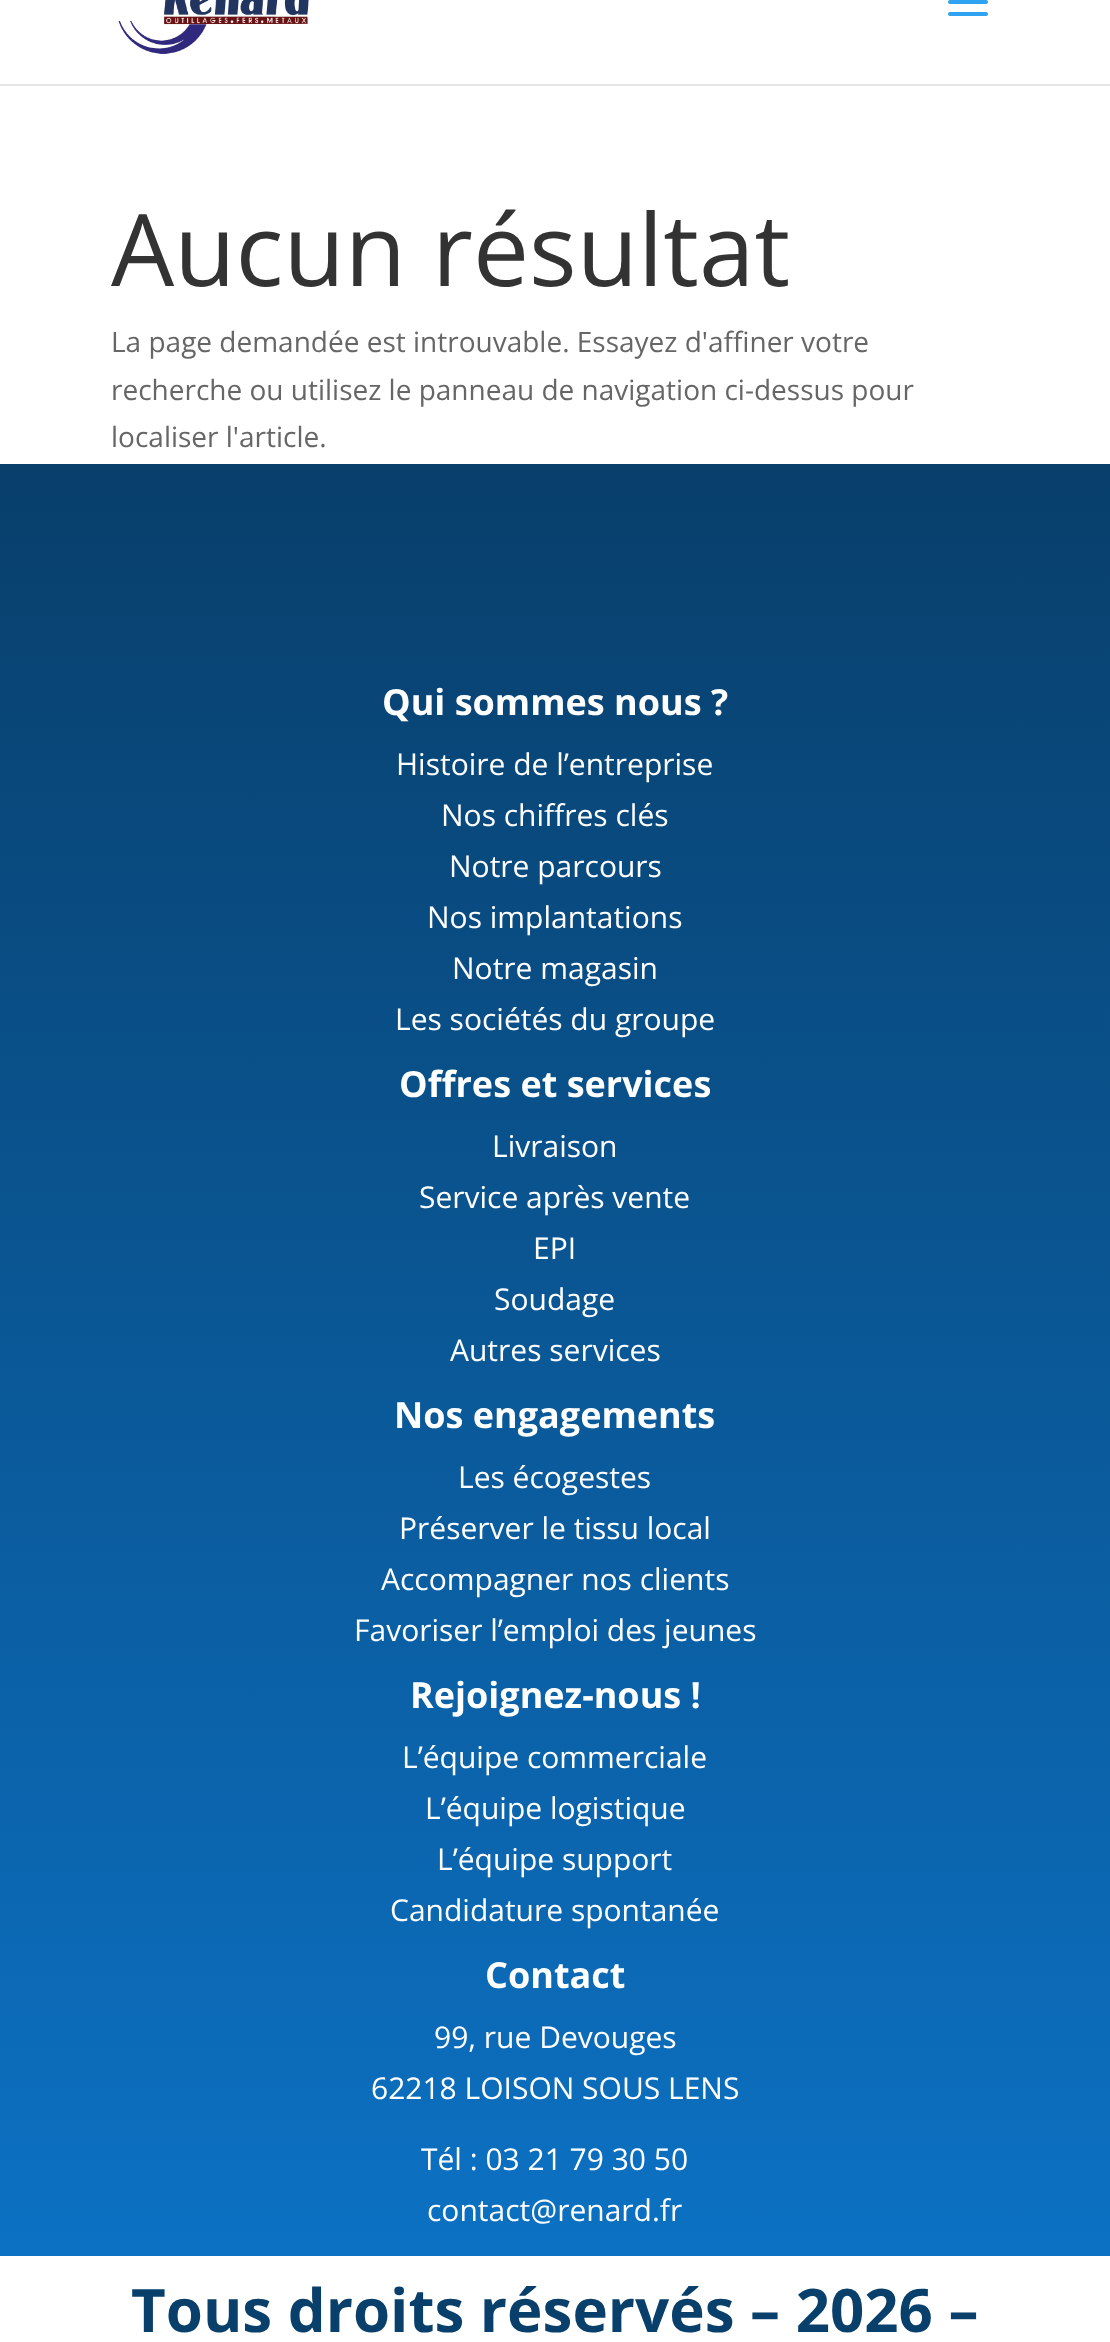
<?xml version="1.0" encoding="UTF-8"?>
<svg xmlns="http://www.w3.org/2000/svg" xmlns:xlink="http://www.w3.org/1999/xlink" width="1110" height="2342">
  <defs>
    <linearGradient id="g1" gradientUnits="userSpaceOnUse" x1="555" y1="464" x2="555" y2="2256"><stop offset="0" stop-color="#083f6b" /><stop offset="1" stop-color="#0c71c3" /></linearGradient>
  </defs>
  <rect width="100%" height="100%" fill="#ffffff" />
  <rect y="84" width="1110" height="2" fill="#e6e6e6" />
  <image x="118" y="0" width="191" height="54" xlink:href="image1.png" />
  <image x="948" y="0" width="40" height="16" xlink:href="image2.png" />
  <rect y="464" width="1110" height="1792" fill="url(#g1)" />
  <text x="111" y="286" style="font-family: Open Sans; font-size: 100px; fill: #333333">Aucun résultat</text>
  <text x="111" y="352" style="font-family: Open Sans; font-size: 28px; fill: #666666">La page demandée est introuvable. Essayez d'affiner votre</text>
  <text x="111" y="400" style="font-family: Open Sans; font-size: 28px; fill: #666666">recherche ou utilisez le panneau de navigation ci-dessus pour</text>
  <text x="111" y="447" style="font-family: Open Sans; font-size: 28px; fill: #666666">localiser l'article.</text>
  <text x="382" y="715" style="font-family: Open Sans; font-size: 36px; font-weight: bold; fill: #ffffff">Qui sommes nous ?</text>
  <text x="396" y="775" style="font-family: Open Sans; font-size: 30px; fill: #ffffff">Histoire de l’entreprise</text>
  <text x="441" y="826" style="font-family: Open Sans; font-size: 30px; fill: #ffffff">Nos chiffres clés</text>
  <text x="449" y="877" style="font-family: Open Sans; font-size: 30px; fill: #ffffff">Notre parcours</text>
  <text x="427" y="928" style="font-family: Open Sans; font-size: 30px; fill: #ffffff">Nos implantations</text>
  <text x="452" y="979" style="font-family: Open Sans; font-size: 30px; fill: #ffffff">Notre magasin</text>
  <text x="395" y="1030" style="font-family: Open Sans; font-size: 30px; fill: #ffffff">Les sociétés du groupe</text>
  <text x="399" y="1097" style="font-family: Open Sans; font-size: 36px; font-weight: bold; fill: #ffffff">Offres et services</text>
  <text x="492" y="1157" style="font-family: Open Sans; font-size: 30px; fill: #ffffff">Livraison</text>
  <text x="419" y="1208" style="font-family: Open Sans; font-size: 30px; fill: #ffffff">Service après vente</text>
  <text x="533" y="1259" style="font-family: Open Sans; font-size: 30px; fill: #ffffff">EPI</text>
  <text x="494" y="1310" style="font-family: Open Sans; font-size: 30px; fill: #ffffff">Soudage</text>
  <text x="450" y="1361" style="font-family: Open Sans; font-size: 30px; fill: #ffffff">Autres services</text>
  <text x="394" y="1428" style="font-family: Open Sans; font-size: 36px; font-weight: bold; fill: #ffffff">Nos engagements</text>
  <text x="458" y="1488" style="font-family: Open Sans; font-size: 30px; fill: #ffffff">Les écogestes</text>
  <text x="399" y="1539" style="font-family: Open Sans; font-size: 30px; fill: #ffffff">Préserver le tissu local</text>
  <text x="381" y="1590" style="font-family: Open Sans; font-size: 30px; fill: #ffffff">Accompagner nos clients</text>
  <text x="354" y="1641" style="font-family: Open Sans; font-size: 30px; fill: #ffffff">Favoriser l’emploi des jeunes</text>
  <text x="410" y="1708" style="font-family: Open Sans; font-size: 36px; font-weight: bold; fill: #ffffff">Rejoignez-nous !</text>
  <text x="402" y="1768" style="font-family: Open Sans; font-size: 30px; fill: #ffffff">L’équipe commerciale</text>
  <text x="425" y="1819" style="font-family: Open Sans; font-size: 30px; fill: #ffffff">L’équipe logistique</text>
  <text x="437" y="1870" style="font-family: Open Sans; font-size: 30px; fill: #ffffff">L’équipe support</text>
  <text x="390" y="1921" style="font-family: Open Sans; font-size: 30px; fill: #ffffff">Candidature spontanée</text>
  <text x="485" y="1988" style="font-family: Open Sans; font-size: 36px; font-weight: bold; fill: #ffffff">Contact</text>
  <text x="434" y="2048" style="font-family: Open Sans; font-size: 30px; fill: #ffffff">99, rue Devouges</text>
  <text x="371" y="2099" style="font-family: Open Sans; font-size: 30px; fill: #ffffff">62218 LOISON SOUS LENS</text>
  <text x="421" y="2170" style="font-family: Open Sans; font-size: 30px; fill: #ffffff">Tél : 03 21 79 30 50</text>
  <text x="427" y="2221" style="font-family: Open Sans; font-size: 30px; fill: #ffffff">contact@renard.fr</text>
  <text x="131" y="2332" style="font-family: Open Sans; font-size: 60px; font-weight: bold; fill: #083f6b">Tous droits réservés – 2026 –</text>
</svg>
